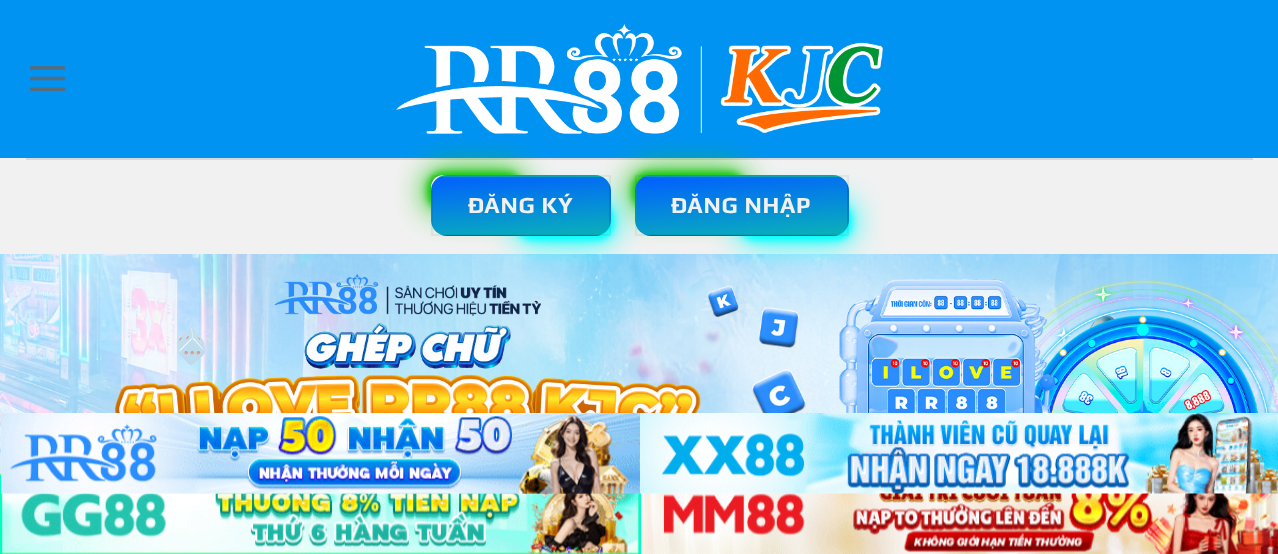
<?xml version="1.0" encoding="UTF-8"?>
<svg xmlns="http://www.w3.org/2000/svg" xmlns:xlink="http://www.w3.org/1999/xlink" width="1278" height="554">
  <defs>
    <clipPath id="clip1"><path d="M 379 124 h 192 v 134 h -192 z m 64 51 h 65 c 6.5 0 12 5.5 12 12 v 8 c 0 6.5 -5.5 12 -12 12 h -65 c -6.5 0 -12 -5.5 -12 -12 v -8 c 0 -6.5 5.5 -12 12 -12 z" clip-rule="evenodd" /></clipPath>
    <clipPath id="clip2"><path d="M 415 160 h 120 v 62 h -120 z m 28 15 h 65 c 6.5 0 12 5.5 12 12 v 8 c 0 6.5 -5.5 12 -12 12 h -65 c -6.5 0 -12 -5.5 -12 -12 v -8 c 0 -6.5 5.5 -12 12 -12 z" clip-rule="evenodd" /></clipPath>
    <clipPath id="clip3"><rect x="431" y="175" width="180" height="61" rx="16" /></clipPath>
    <linearGradient id="g1" gradientUnits="userSpaceOnUse" x1="518" y1="113" x2="523" y2="183"><stop offset="0" stop-color="#0160ff" /><stop offset="1" stop-color="#09b1b9" /></linearGradient>
    <linearGradient id="g2" gradientUnits="userSpaceOnUse" x1="341" y1="171" x2="346" y2="241"><stop offset="0" stop-color="#0160ff" /><stop offset="1" stop-color="#09b1b9" /></linearGradient>
    <linearGradient id="g3" gradientUnits="userSpaceOnUse" x1="518" y1="171" x2="523" y2="241"><stop offset="0" stop-color="#0160ff" /><stop offset="1" stop-color="#09b1b9" /></linearGradient>
    <linearGradient id="g4" gradientUnits="userSpaceOnUse" x1="695" y1="171" x2="700" y2="241"><stop offset="0" stop-color="#0160ff" /><stop offset="1" stop-color="#09b1b9" /></linearGradient>
    <linearGradient id="g5" gradientUnits="userSpaceOnUse" x1="518" y1="228" x2="523" y2="298"><stop offset="0" stop-color="#0160ff" /><stop offset="1" stop-color="#09b1b9" /></linearGradient>
    <clipPath id="clip4"><rect x="635" y="175" width="214" height="61" rx="16" /></clipPath>
    <linearGradient id="g6" gradientUnits="userSpaceOnUse" x1="739" y1="112" x2="745" y2="184"><stop offset="0" stop-color="#0160ff" /><stop offset="1" stop-color="#09b1b9" /></linearGradient>
    <linearGradient id="g7" gradientUnits="userSpaceOnUse" x1="529" y1="170" x2="535" y2="242"><stop offset="0" stop-color="#0160ff" /><stop offset="1" stop-color="#09b1b9" /></linearGradient>
    <linearGradient id="g8" gradientUnits="userSpaceOnUse" x1="739" y1="170" x2="745" y2="242"><stop offset="0" stop-color="#0160ff" /><stop offset="1" stop-color="#09b1b9" /></linearGradient>
    <linearGradient id="g9" gradientUnits="userSpaceOnUse" x1="949" y1="170" x2="955" y2="242"><stop offset="0" stop-color="#0160ff" /><stop offset="1" stop-color="#09b1b9" /></linearGradient>
    <linearGradient id="g10" gradientUnits="userSpaceOnUse" x1="739" y1="227" x2="745" y2="299"><stop offset="0" stop-color="#0160ff" /><stop offset="1" stop-color="#09b1b9" /></linearGradient>
  </defs>
  <rect width="100%" height="100%" fill="#ffffff" />
  <rect width="1278" height="158" fill="#0193f2" />
  <image x="29" y="66" width="37" height="25" xlink:href="image1.png" />
  <rect y="158" width="1278" height="96" fill="#f1f1f1" />
  <image x="0" y="254" width="1278" height="220" xlink:href="image3.png" />
  <g clip-path="url(#clip1)">
    <rect x="425" y="170" width="100" height="42" rx="18" fill="#16c60c" filter="blur(15px)" />
  </g>
  <rect x="630" y="170" width="117" height="42" rx="18" fill="#16c60c" filter="blur(15px)" />
  <image x="396" y="23" width="487" height="111" xlink:href="image2.png" />
  <rect x="515" y="201" width="101" height="41" rx="18" fill="#00ffff" filter="blur(15px)" />
  <rect x="737" y="201" width="117" height="41" rx="18" fill="#00ffff" filter="blur(15px)" />
  <rect x="26" y="158" width="1227" height="2" fill="#000000" fill-opacity="0.1" />
  <g clip-path="url(#clip2)">
    <rect x="427" y="172" width="96" height="38" rx="16" fill="#16c60c" filter="blur(3.5px)" />
  </g>
  <rect x="516" y="203" width="98" height="37" rx="16" fill="#00ffff" filter="blur(3.5px)" />
  <g clip-path="url(#clip3)">
    <rect x="432" y="175" width="177" height="2" fill="url(#g1)" />
    <rect x="431" y="177" width="1" height="49" fill="url(#g2)" />
    <rect x="432" y="177" width="177" height="58" fill="url(#g3)" />
    <rect x="609" y="177" width="2" height="58" fill="url(#g4)" />
    <rect x="441" y="235" width="168" height="1" fill="url(#g5)" />
  </g>
  <rect x="432" y="176" width="178" height="59" fill="none" stroke="#000000" stroke-opacity="0.05" stroke-width="2" />
  <rect x="632" y="172" width="114" height="38" rx="16" fill="#16c60c" filter="blur(3.5px)" />
  <rect x="739" y="203" width="113" height="37" rx="16" fill="#00ffff" filter="blur(3.5px)" />
  <g clip-path="url(#clip4)">
    <rect x="637" y="175" width="210" height="2" fill="url(#g6)" />
    <rect x="635" y="177" width="2" height="58" fill="url(#g7)" />
    <rect x="637" y="177" width="210" height="58" fill="url(#g8)" />
    <rect x="847" y="177" width="2" height="58" fill="url(#g9)" />
    <rect x="637" y="235" width="210" height="1" fill="url(#g10)" />
  </g>
  <rect x="636" y="176" width="212" height="59" fill="none" stroke="#000000" stroke-opacity="0.05" stroke-width="2" />
  <image x="0" y="474" width="641" height="80" xlink:href="image6.png" />
  <image x="1" y="413" width="639" height="81" xlink:href="image4.png" />
  <image x="641" y="493" width="637" height="61" xlink:href="image7.png" />
  <image x="640" y="413" width="638" height="81" xlink:href="image5.png" />
  <text x="468" y="213" style="font-family: Play; font-size: 23px; font-weight: bold; letter-spacing: 0.75px; fill: #f1f1f1">ĐĂNG KÝ</text>
  <text x="671" y="213" style="font-family: Play; font-size: 23px; font-weight: bold; letter-spacing: 0.75px; fill: #f1f1f1">ĐĂNG NHẬP</text>
</svg>
